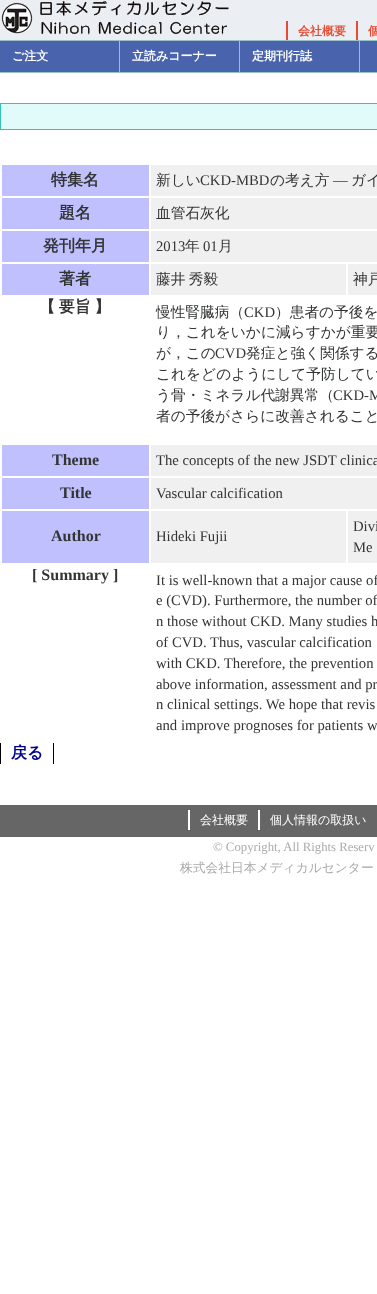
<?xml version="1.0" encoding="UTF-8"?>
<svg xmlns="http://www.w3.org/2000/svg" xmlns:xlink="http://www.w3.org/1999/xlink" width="377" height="1294">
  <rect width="100%" height="100%" fill="#ffffff" />
  <rect width="377" height="40" fill="#ebeef3" />
  <image x="0" y="0" width="232" height="36" xlink:href="image1.png" />
  <rect x="356" y="21" width="2" height="21" fill="#ea492f" />
  <rect x="286" y="21" width="2" height="21" fill="#ea492f" />
  <rect x="-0.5" y="40.5" width="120" height="32" fill="#4964ac" stroke="#9ac1c9" />
  <rect x="119.5" y="40.5" width="120" height="32" fill="#4964ac" stroke="#9ac1c9" />
  <rect x="239.5" y="40.5" width="120" height="32" fill="#4964ac" stroke="#9ac1c9" />
  <rect x="359.5" y="40.5" width="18" height="32" fill="#4964ac" stroke="#9ac1c9" />
  <rect x="0.5" y="103.5" width="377" height="26" fill="#e0fbf9" stroke="#32c2b8" />
  <rect x="2" y="165" width="147" height="31" fill="#c0c0ff" />
  <rect x="151" y="165" width="226" height="31" fill="#f0f0f0" />
  <rect x="2" y="198" width="147" height="31" fill="#c0c0ff" />
  <rect x="151" y="198" width="226" height="31" fill="#f0f0f0" />
  <rect x="2" y="231" width="147" height="31" fill="#c0c0ff" />
  <rect x="151" y="231" width="226" height="31" fill="#f0f0f0" />
  <rect x="2" y="264" width="147" height="31" fill="#c0c0ff" />
  <rect x="151" y="264" width="195" height="31" fill="#f0f0f0" />
  <rect x="348" y="264" width="29" height="31" fill="#f0f0f0" />
  <rect x="2" y="445" width="147" height="31" fill="#c0c0ff" />
  <rect x="151" y="445" width="226" height="31" fill="#f0f0f0" />
  <rect x="2" y="478" width="147" height="31" fill="#c0c0ff" />
  <rect x="151" y="478" width="226" height="31" fill="#f0f0f0" />
  <rect x="2" y="511" width="147" height="52" fill="#c0c0ff" />
  <rect x="151" y="511" width="195" height="52" fill="#f0f0f0" />
  <rect x="348" y="511" width="29" height="52" fill="#f0f0f0" />
  <rect x="53" y="743" width="1" height="21" fill="#000000" />
  <rect y="743" width="1" height="21" fill="#000000" />
  <rect y="805" width="377" height="32" fill="#666666" />
  <rect x="258" y="810" width="2" height="20" fill="#ffffff" />
  <rect x="188" y="810" width="2" height="20" fill="#ffffff" />
  <text x="298" y="35" style="font-family: WenQuanYi Zen Hei; font-size: 12px; font-weight: bold; fill: #ea492f">会社概要</text>
  <text x="368" y="35" style="font-family: WenQuanYi Zen Hei; font-size: 12px; font-weight: bold; fill: #ea492f">個</text>
  <text x="12" y="60" style="font-family: WenQuanYi Zen Hei; font-size: 12px; font-weight: bold; fill: #ffffff">ご注文</text>
  <text x="132" y="60" style="font-family: WenQuanYi Zen Hei; font-size: 12px; font-weight: bold; fill: #ffffff">立読みコーナー</text>
  <text x="252" y="60" style="font-family: WenQuanYi Zen Hei; font-size: 12px; font-weight: bold; fill: #ffffff">定期刊行誌</text>
  <text x="51" y="185" style="font-family: WenQuanYi Zen Hei; font-size: 16px; font-weight: bold; fill: #333434">特集名</text>
  <text x="156" y="185" style="font-family: WenQuanYi Zen Hei; font-size: 14.7px; font-weight: 500; fill: #333434">新しい</text>
  <text x="200" y="185" style="font-family: Liberation Serif; font-size: 14.7px; fill: #333434">CKD-MBD</text>
  <text x="270" y="185" style="font-family: WenQuanYi Zen Hei; font-size: 14.7px; font-weight: 500; fill: #333434">の考え方</text>
  <text x="333" y="185" style="font-family: Liberation Serif; font-size: 14.7px; fill: #333434">―</text>
  <text x="351" y="185" style="font-family: WenQuanYi Zen Hei; font-size: 14.7px; font-weight: 500; fill: #333434">ガイ</text>
  <text x="59" y="218" style="font-family: WenQuanYi Zen Hei; font-size: 16px; font-weight: bold; fill: #333434">題名</text>
  <text x="156" y="218" style="font-family: WenQuanYi Zen Hei; font-size: 14.7px; font-weight: 500; fill: #333434">血管石灰化</text>
  <text x="43" y="251" style="font-family: WenQuanYi Zen Hei; font-size: 16px; font-weight: bold; fill: #333434">発刊年月</text>
  <text x="156" y="251" style="font-family: Liberation Serif; font-size: 14.7px; fill: #333434">2013</text>
  <text x="185" y="251" style="font-family: WenQuanYi Zen Hei; font-size: 14.7px; font-weight: 500; fill: #333434">年</text>
  <text x="203" y="251" style="font-family: Liberation Serif; font-size: 14.7px; fill: #333434">01</text>
  <text x="218" y="251" style="font-family: WenQuanYi Zen Hei; font-size: 14.7px; font-weight: 500; fill: #333434">月</text>
  <text x="59" y="284" style="font-family: WenQuanYi Zen Hei; font-size: 16px; font-weight: bold; fill: #333434">著者</text>
  <text x="156" y="284" word-spacing="-1" style="font-family: WenQuanYi Zen Hei; font-size: 14.7px; font-weight: 500; fill: #333434">藤井 秀毅</text>
  <text x="353" y="284" style="font-family: WenQuanYi Zen Hei; font-size: 14.7px; font-weight: 500; fill: #333434">神戸</text>
  <text x="39" y="312" word-spacing="-1" style="font-family: WenQuanYi Zen Hei; font-size: 16px; font-weight: bold; fill: #333434">【 要旨 】</text>
  <text x="156" y="317" style="font-family: WenQuanYi Zen Hei; font-size: 14.7px; font-weight: 500; fill: #333434">慢性腎臓病（</text>
  <text x="244" y="317" style="font-family: Liberation Serif; font-size: 14.7px; fill: #333434">CKD</text>
  <text x="275" y="317" style="font-family: WenQuanYi Zen Hei; font-size: 14.7px; font-weight: 500; fill: #333434">）患者の予後を</text>
  <text x="156" y="337" style="font-family: WenQuanYi Zen Hei; font-size: 14.7px; font-weight: 500; fill: #333434">り，これをいかに減らすかが重要</text>
  <text x="156" y="358" style="font-family: WenQuanYi Zen Hei; font-size: 14.7px; font-weight: 500; fill: #333434">が，この</text>
  <text x="215" y="358" style="font-family: Liberation Serif; font-size: 14.7px; fill: #333434">CVD</text>
  <text x="246" y="358" style="font-family: WenQuanYi Zen Hei; font-size: 14.7px; font-weight: 500; fill: #333434">発症と強く関係する</text>
  <text x="156" y="379" style="font-family: WenQuanYi Zen Hei; font-size: 14.7px; font-weight: 500; fill: #333434">これをどのようにして予防してい</text>
  <text x="156" y="400" style="font-family: WenQuanYi Zen Hei; font-size: 14.7px; font-weight: 500; fill: #333434">う骨・ミネラル代謝異常（</text>
  <text x="333" y="400" style="font-family: Liberation Serif; font-size: 14.7px; fill: #333434">CKD-M</text>
  <text x="156" y="421" style="font-family: WenQuanYi Zen Hei; font-size: 14.7px; font-weight: 500; fill: #333434">者の予後がさらに改善されること</text>
  <text x="52" y="465" style="font-family: Liberation Serif; font-size: 16px; font-weight: bold; fill: #333434">Theme</text>
  <text x="156" y="465" style="font-family: Liberation Serif; font-size: 14.7px; fill: #333434">The concepts of the new JSDT clinica</text>
  <text x="60" y="498" style="font-family: Liberation Serif; font-size: 16px; font-weight: bold; fill: #333434">Title</text>
  <text x="156" y="498" style="font-family: Liberation Serif; font-size: 14.7px; fill: #333434">Vascular calcification</text>
  <text x="51" y="541" style="font-family: Liberation Serif; font-size: 16px; font-weight: bold; fill: #333434">Author</text>
  <text x="156" y="541" style="font-family: Liberation Serif; font-size: 14.7px; fill: #333434">Hideki Fujii</text>
  <text x="353" y="531" style="font-family: Liberation Serif; font-size: 14.7px; fill: #333434">Divi</text>
  <text x="353" y="552" style="font-family: Liberation Serif; font-size: 14.7px; fill: #333434">Me</text>
  <text x="32" y="580" style="font-family: Liberation Serif; font-size: 16px; font-weight: bold; fill: #333434">[ Summary ]</text>
  <text x="156" y="585" style="font-family: Liberation Serif; font-size: 14.7px; fill: #333434">It is well-known that a major cause of</text>
  <text x="156" y="605" style="font-family: Liberation Serif; font-size: 14.7px; fill: #333434">e (CVD). Furthermore, the number of</text>
  <text x="156" y="626" style="font-family: Liberation Serif; font-size: 14.7px; fill: #333434">n those without CKD. Many studies h</text>
  <text x="156" y="647" style="font-family: Liberation Serif; font-size: 14.7px; fill: #333434">of CVD. Thus, vascular calcification</text>
  <text x="156" y="668" style="font-family: Liberation Serif; font-size: 14.7px; fill: #333434">with CKD. Therefore, the prevention</text>
  <text x="156" y="689" style="font-family: Liberation Serif; font-size: 14.7px; fill: #333434">above information, assessment and pr</text>
  <text x="156" y="709" style="font-family: Liberation Serif; font-size: 14.7px; fill: #333434">n clinical settings. We hope that revis</text>
  <text x="156" y="730" style="font-family: Liberation Serif; font-size: 14.7px; fill: #333434">and improve prognoses for patients w</text>
  <text x="11" y="758" style="font-family: WenQuanYi Zen Hei; font-size: 16px; font-weight: bold; fill: #00008b">戻る</text>
  <text x="200" y="824" style="font-family: WenQuanYi Zen Hei; font-size: 12px; font-weight: 500; fill: #ffffff">会社概要</text>
  <text x="270" y="824" style="font-family: WenQuanYi Zen Hei; font-size: 12px; font-weight: 500; fill: #ffffff">個人情報の取扱い</text>
  <text x="213" y="851" style="font-family: Liberation Serif; font-size: 12.75px; fill: #aaaaaa">© Copyright, All Rights Reserv</text>
  <text x="180" y="872" style="font-family: WenQuanYi Zen Hei; font-size: 12.75px; font-weight: 500; fill: #aaaaaa">株式会社日本メディカルセンター</text>
</svg>
